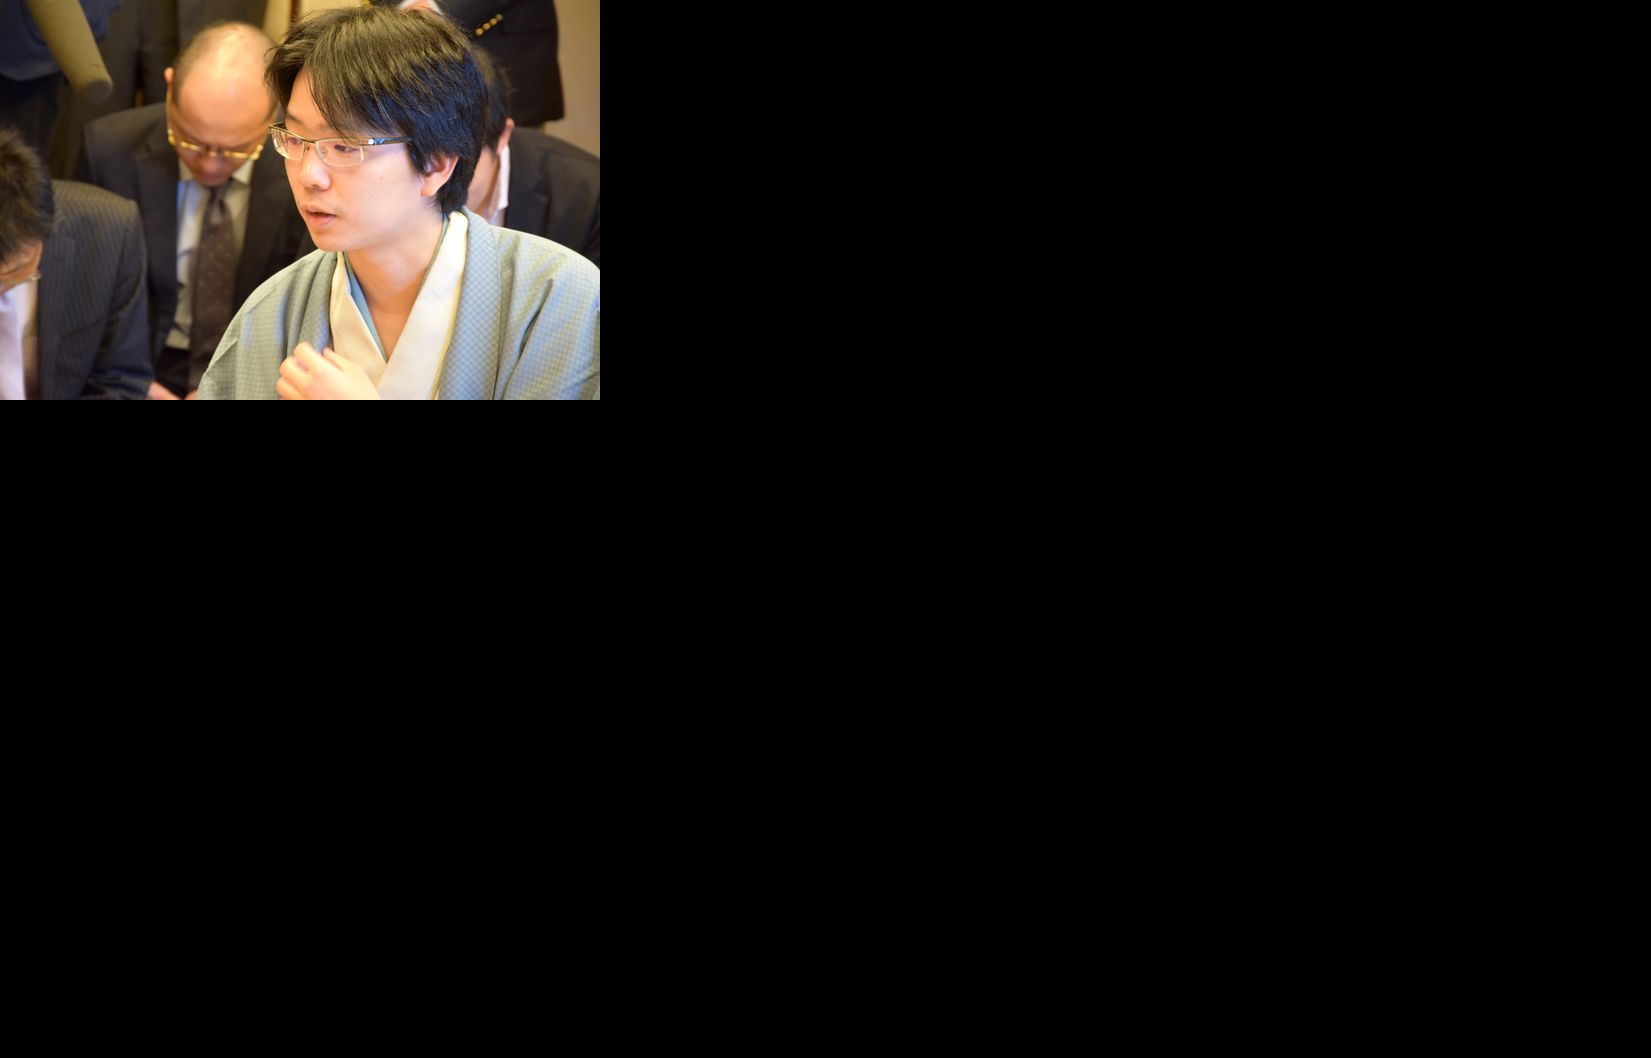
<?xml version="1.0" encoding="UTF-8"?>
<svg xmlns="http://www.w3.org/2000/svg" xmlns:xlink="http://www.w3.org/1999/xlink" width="1651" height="1058">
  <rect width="100%" height="100%" fill="#000000" />
  <image x="0" y="0" width="600" height="400" xlink:href="image1.png" />
</svg>
